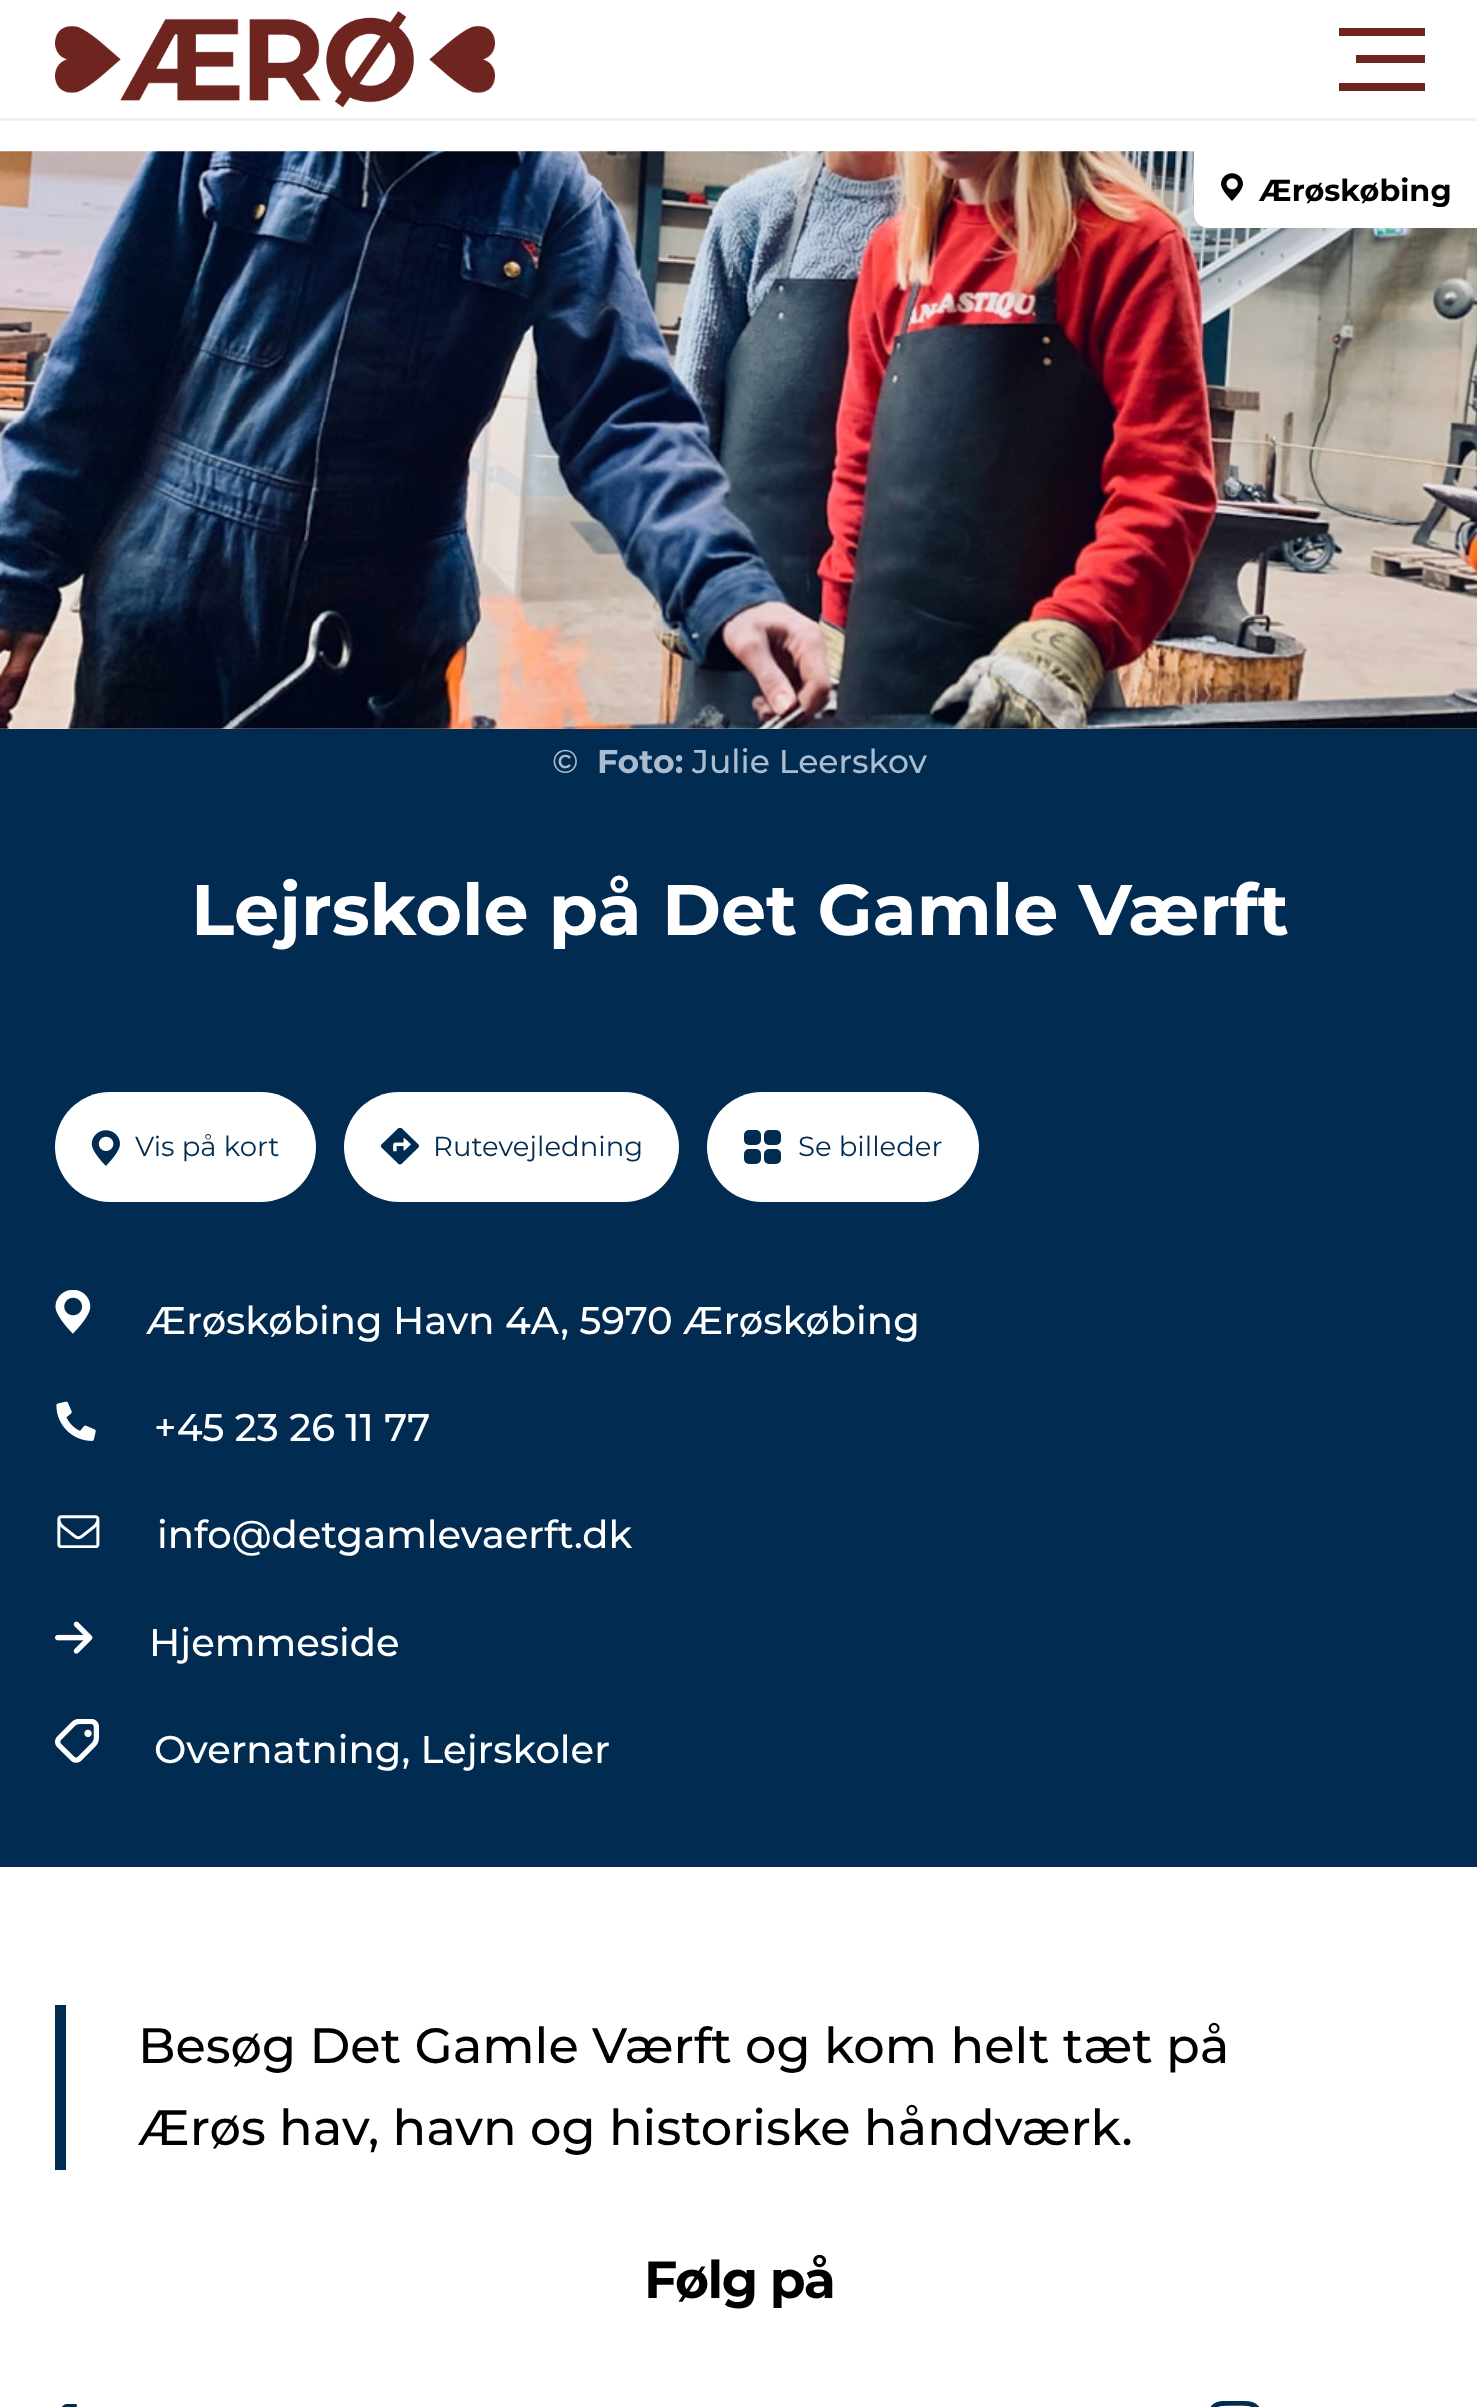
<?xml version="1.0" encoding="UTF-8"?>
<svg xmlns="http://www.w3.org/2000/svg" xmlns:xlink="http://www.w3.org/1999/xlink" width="1477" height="2407">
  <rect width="100%" height="100%" fill="#ffffff" />
  <rect y="118" width="1477" height="3" fill="#f0f1f3" />
  <image x="55" y="11" width="440" height="97" xlink:href="image1.png" />
  <rect x="1339" y="28" width="86" height="8" fill="#6e2520" />
  <rect x="1356" y="55" width="69" height="8" fill="#6e2520" />
  <rect x="1339" y="83" width="86" height="8" fill="#6e2520" />
  <image x="0" y="151" width="1477" height="578" xlink:href="image2.png" />
  <path d="M 1194 151 h 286 v 77 h -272 c -7.5 0 -14 -6.5 -14 -14 z" fill="#ffffff" />
  <image x="1221" y="173" width="22" height="28" xlink:href="image3.png" />
  <rect y="729" width="1477" height="1138" fill="#022b52" />
  <rect x="55" y="1092" width="261" height="110" rx="55" fill="#ffffff" />
  <image x="91" y="1130" width="29" height="36" xlink:href="image4.png" />
  <rect x="344" y="1092" width="335" height="110" rx="55" fill="#ffffff" />
  <image x="380" y="1128" width="39" height="37" xlink:href="image5.png" />
  <rect x="707" y="1092" width="272" height="110" rx="55" fill="#ffffff" />
  <rect x="764" y="1130" width="17" height="15" rx="5" fill="#022b52" />
  <rect x="764" y="1149" width="17" height="15" rx="5" fill="#022b52" />
  <rect x="744" y="1130" width="17" height="15" rx="5" fill="#022b52" />
  <rect x="744" y="1149" width="17" height="15" rx="5" fill="#022b52" />
  <image x="55" y="1290" width="36" height="44" xlink:href="image6.png" />
  <image x="56" y="1401" width="40" height="40" xlink:href="image7.png" />
  <image x="57" y="1515" width="43" height="33" xlink:href="image8.png" />
  <image x="55" y="1621" width="38" height="33" xlink:href="image9.png" />
  <image x="55" y="1719" width="44" height="44" xlink:href="image10.png" />
  <rect x="55" y="2005" width="11" height="165" fill="#022b52" />
  <image x="61" y="2404" width="16" height="3" xlink:href="image11.png" />
  <image x="1210" y="2401" width="50" height="6" xlink:href="image12.png" />
  <text x="1259" y="201" style="font-family: Montserrat; font-size: 30.25px; font-weight: bold; fill: #000000">Ærøskøbing</text>
  <text x="552" y="773" style="font-family: Montserrat; font-size: 33px; font-weight: 500; fill: #aabccd">©</text>
  <text x="597" y="773" style="font-family: Montserrat; font-size: 33px; font-weight: bold; fill: #aabccd">Foto:</text>
  <text x="692" y="773" style="font-family: Montserrat; font-size: 33px; font-weight: 500; fill: #aabccd">Julie Leerskov</text>
  <text x="191" y="935" style="font-family: Montserrat; font-size: 71.5px; font-weight: bold; fill: #ffffff">Lejrskole på Det Gamle Værft</text>
  <text x="135" y="1156" style="font-family: Montserrat; font-size: 27.5px; fill: #022b52">Vis på kort</text>
  <text x="433" y="1156" style="font-family: Montserrat; font-size: 27.5px; fill: #022b52">Rutevejledning</text>
  <text x="798" y="1156" style="font-family: Montserrat; font-size: 27.5px; fill: #022b52">Se billeder</text>
  <text x="146" y="1334" style="font-family: Montserrat; font-size: 38.5px; font-weight: 500; fill: #ffffff">Ærøskøbing Havn 4A, 5970 Ærøskøbing</text>
  <text x="154" y="1441" style="font-family: Montserrat; font-size: 38.5px; font-weight: 500; fill: #ffffff">+45 23 26 11 77</text>
  <text x="157" y="1548" style="font-family: Montserrat; font-size: 38.5px; font-weight: 500; fill: #ffffff">info@detgamlevaerft.dk</text>
  <text x="149" y="1656" style="font-family: Montserrat; font-size: 38.5px; font-weight: 500; fill: #ffffff">Hjemmeside</text>
  <text x="154" y="1763" style="font-family: Montserrat; font-size: 38.5px; font-weight: 500; fill: #ffffff">Overnatning, Lejrskoler</text>
  <text x="138" y="2063" style="font-family: Montserrat; font-size: 49.5px; font-weight: 500; fill: #000000">Besøg Det Gamle Værft og kom helt tæt på</text>
  <text x="138" y="2145" style="font-family: Montserrat; font-size: 49.5px; font-weight: 500; fill: #000000">Ærøs hav, havn og historiske håndværk.</text>
  <text x="644" y="2298" style="font-family: Montserrat; font-size: 52px; font-weight: bold; letter-spacing: -1.5px; fill: #000000">Følg på</text>
</svg>
